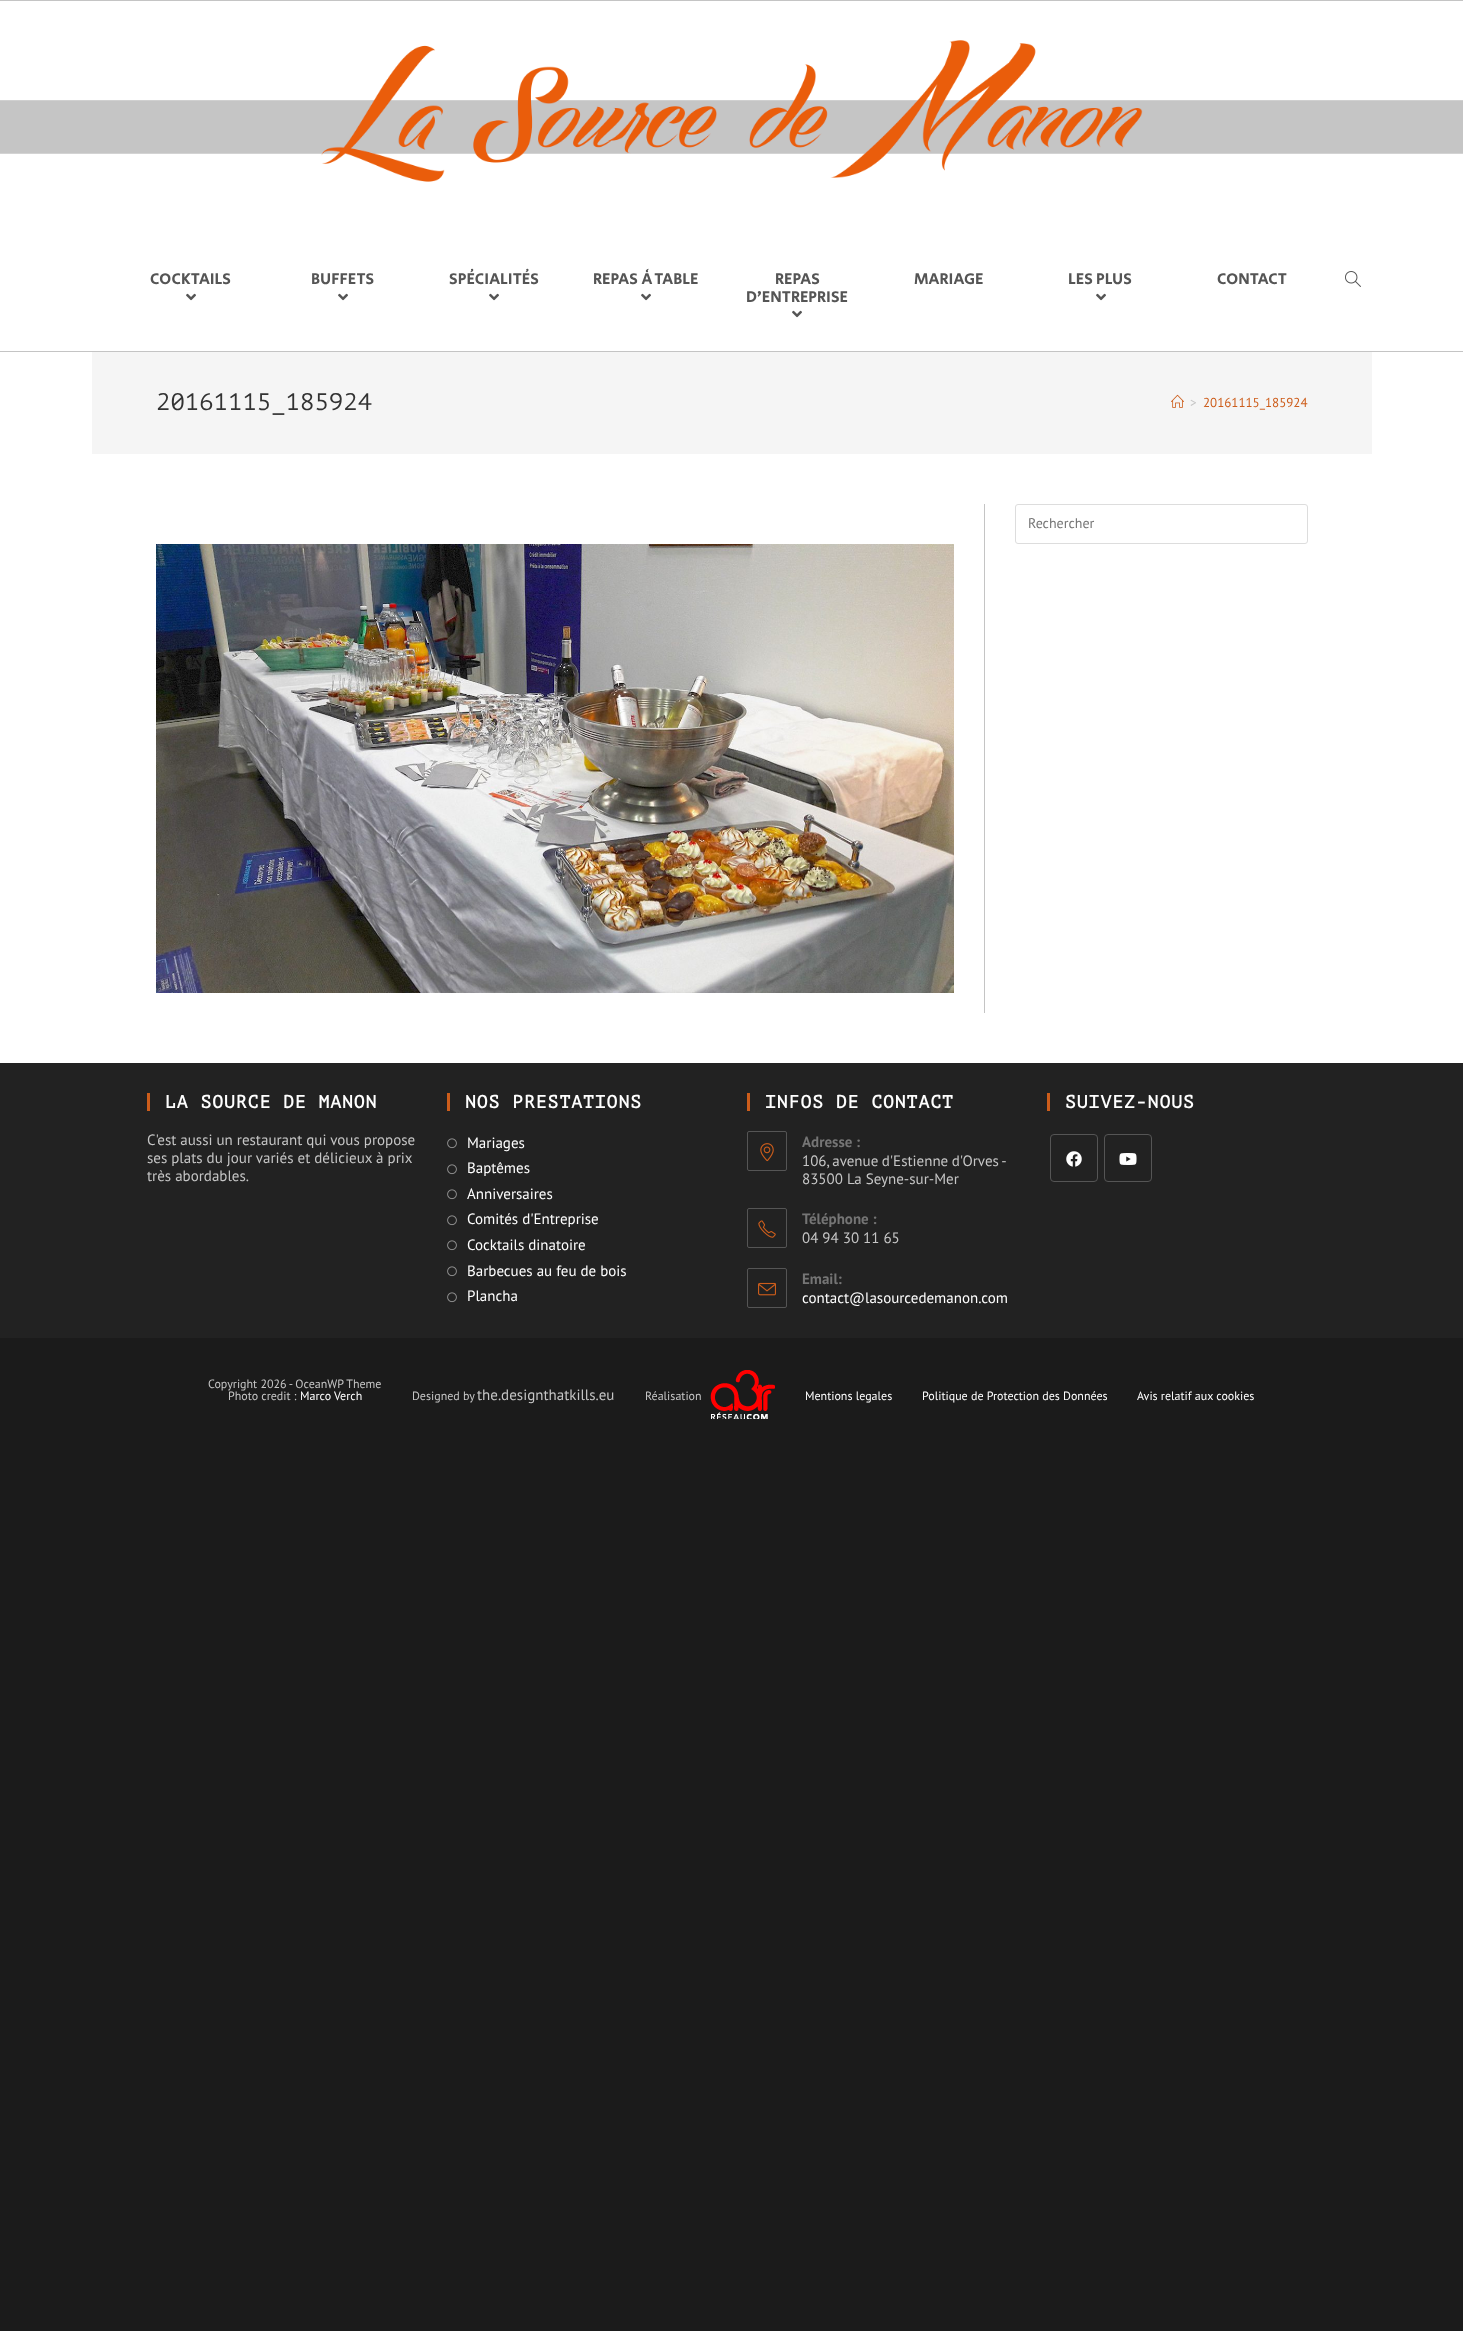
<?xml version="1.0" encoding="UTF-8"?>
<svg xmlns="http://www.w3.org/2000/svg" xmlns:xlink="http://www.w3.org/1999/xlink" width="1463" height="2331">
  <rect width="100%" height="100%" fill="#1b1b1b" />
  <rect y="1" width="1463" height="1062" fill="#ffffff" />
  <rect width="1463" height="1" fill="#c4c4c4" />
  <rect y="351" width="1463" height="1" fill="#c4c4c4" />
  <image x="0" y="40" width="1463" height="142" xlink:href="image1.png" />
  <image x="186" y="293" width="10" height="8" xlink:href="image2.png" />
  <image x="338" y="293" width="10" height="8" xlink:href="image2.png" />
  <image x="489" y="293" width="10" height="8" xlink:href="image2.png" />
  <image x="641" y="293" width="10" height="8" xlink:href="image2.png" />
  <image x="792" y="310" width="10" height="8" xlink:href="image2.png" />
  <image x="1096" y="293" width="10" height="8" xlink:href="image2.png" />
  <image x="1345" y="271" width="16" height="16" xlink:href="image3.png" />
  <rect x="92" y="352" width="1280" height="102" fill="#f5f5f5" />
  <image x="1171" y="394" width="13" height="14" xlink:href="image4.png" />
  <rect x="984" y="504" width="1" height="509" fill="#c4c4c4" />
  <image x="156" y="544" width="798" height="449" xlink:href="image5.png" />
  <rect x="1015.5" y="504.5" width="292" height="39" rx="2.5" fill="none" stroke="#dddddd" />
  <rect y="1063" width="1463" height="275" fill="#222222" />
  <rect x="147" y="1093" width="3" height="18" fill="#cd5d1b" />
  <rect x="447" y="1093" width="3" height="18" fill="#cd5d1b" />
  <image x="447" y="1138" width="10" height="11" xlink:href="image6.png" />
  <image x="447" y="1164" width="10" height="11" xlink:href="image6.png" />
  <image x="447" y="1189" width="10" height="11" xlink:href="image6.png" />
  <image x="447" y="1215" width="10" height="11" xlink:href="image6.png" />
  <image x="447" y="1240" width="10" height="11" xlink:href="image6.png" />
  <image x="447" y="1266" width="10" height="11" xlink:href="image6.png" />
  <image x="447" y="1292" width="10" height="11" xlink:href="image6.png" />
  <rect x="747" y="1093" width="3" height="18" fill="#cd5d1b" />
  <rect x="747.5" y="1131.5" width="39" height="39" rx="1.5" fill="none" stroke="#555555" />
  <image x="760" y="1143" width="14" height="19" xlink:href="image7.png" />
  <rect x="747.5" y="1208.5" width="39" height="39" rx="1.5" fill="none" stroke="#555555" />
  <image x="758" y="1220" width="18" height="18" xlink:href="image8.png" />
  <rect x="747.5" y="1268.5" width="39" height="39" rx="1.5" fill="none" stroke="#555555" />
  <image x="758" y="1282" width="18" height="14" xlink:href="image9.png" />
  <rect x="1047" y="1093" width="3" height="18" fill="#cd5d1b" />
  <rect x="1050.5" y="1134.5" width="47" height="47" rx="3.5" fill="none" stroke="#555555" />
  <image x="1066" y="1151" width="16" height="16" xlink:href="image10.png" />
  <rect x="1104.5" y="1134.5" width="47" height="47" rx="3.5" fill="none" stroke="#555555" />
  <image x="1119" y="1153" width="18" height="12" xlink:href="image11.png" />
  <image x="710" y="1370" width="65" height="49" xlink:href="image12.png" />
  <text x="150" y="284" style="font-family: Secular One; font-size: 16px; fill: #555555">COCKTAILS</text>
  <text x="311" y="284" style="font-family: Secular One; font-size: 16px; fill: #555555">BUFFETS</text>
  <text x="449" y="284" style="font-family: Secular One; font-size: 16px; fill: #555555">SPÉCIALITÉS</text>
  <text x="593" y="284" style="font-family: Secular One; font-size: 16px; fill: #555555">REPAS À TABLE</text>
  <text x="775" y="284" style="font-family: Secular One; font-size: 16px; fill: #555555">REPAS</text>
  <text x="746" y="302" style="font-family: Secular One; font-size: 16px; fill: #555555">D’ENTREPRISE</text>
  <text x="914" y="284" style="font-family: Secular One; font-size: 16px; fill: #555555">MARIAGE</text>
  <text x="1068" y="284" style="font-family: Secular One; font-size: 16px; fill: #555555">LES PLUS</text>
  <text x="1217" y="284" style="font-family: Secular One; font-size: 16px; fill: #555555">CONTACT</text>
  <text x="156" y="410" style="font-family: PT Mono; font-size: 24px; fill: #333333">20161115_185924</text>
  <text x="1190" y="407" style="font-family: PT Sans; font-size: 13px; fill: #c6c6c6">&gt;</text>
  <text x="1203" y="407" style="font-family: PT Sans; font-size: 13px; fill: #cd5d1b">20161115_185924</text>
  <text x="1028" y="528" style="font-family: PT Sans; font-size: 14px; fill: #757575">Rechercher</text>
  <text x="165" y="1108" style="font-family: PT Mono; font-size: 18px; font-weight: bold; letter-spacing: 1px; fill: #ffffff">LA SOURCE DE MANON</text>
  <text x="147" y="1145" style="font-family: PT Sans; font-size: 15px; fill: #c6c6c6">C'est aussi un restaurant qui vous propose</text>
  <text x="147" y="1163" style="font-family: PT Sans; font-size: 15px; fill: #c6c6c6">ses plats du jour variés et délicieux à prix</text>
  <text x="147" y="1181" style="font-family: PT Sans; font-size: 15px; fill: #c6c6c6">très abordables.</text>
  <text x="465" y="1108" style="font-family: PT Mono; font-size: 18px; font-weight: bold; letter-spacing: 1px; fill: #ffffff">NOS PRESTATIONS</text>
  <text x="467" y="1148" style="font-family: PT Sans; font-size: 15px; fill: #ffffff">Mariages</text>
  <text x="467" y="1173" style="font-family: PT Sans; font-size: 15px; fill: #ffffff">Baptêmes</text>
  <text x="467" y="1199" style="font-family: PT Sans; font-size: 15px; fill: #ffffff">Anniversaires</text>
  <text x="467" y="1224" style="font-family: PT Sans; font-size: 15px; fill: #ffffff">Comités d'Entreprise</text>
  <text x="467" y="1250" style="font-family: PT Sans; font-size: 15px; fill: #ffffff">Cocktails dinatoire</text>
  <text x="467" y="1276" style="font-family: PT Sans; font-size: 15px; fill: #ffffff">Barbecues au feu de bois</text>
  <text x="467" y="1301" style="font-family: PT Sans; font-size: 15px; fill: #ffffff">Plancha</text>
  <text x="765" y="1108" style="font-family: PT Mono; font-size: 18px; font-weight: bold; letter-spacing: 1px; fill: #ffffff">INFOS DE CONTACT</text>
  <text x="802" y="1147" style="font-family: PT Sans; font-size: 15px; font-weight: bold; fill: #757575">Adresse :</text>
  <text x="802" y="1166" word-spacing="-0.5" style="font-family: PT Sans; font-size: 15px; fill: #c6c6c6">106, avenue d'Estienne d'Orves -</text>
  <text x="802" y="1184" style="font-family: PT Sans; font-size: 15px; fill: #c6c6c6">83500 La Seyne-sur-Mer</text>
  <text x="802" y="1224" style="font-family: PT Sans; font-size: 15px; font-weight: bold; fill: #757575">Téléphone :</text>
  <text x="802" y="1243" style="font-family: PT Sans; font-size: 15px; fill: #c6c6c6">04 94 30 11 65</text>
  <text x="802" y="1284" style="font-family: PT Sans; font-size: 15px; font-weight: bold; fill: #757575">Email:</text>
  <text x="802" y="1303" style="font-family: PT Sans; font-size: 15px; fill: #ffffff">contact@lasourcedemanon.com</text>
  <text x="1065" y="1108" style="font-family: PT Mono; font-size: 18px; font-weight: bold; letter-spacing: 1px; fill: #ffffff">SUIVEZ-NOUS</text>
  <text x="208" y="1388" style="font-family: PT Sans; font-size: 12px; fill: #c6c6c6">Copyright 2026 - OceanWP Theme</text>
  <text x="228" y="1400" style="font-family: PT Sans; font-size: 12px; fill: #c6c6c6">Photo credit :</text>
  <text x="300" y="1400" style="font-family: PT Sans; font-size: 12px; fill: #ffffff">Marco Verch</text>
  <text x="412" y="1400" style="font-family: PT Sans; font-size: 12px; fill: #c6c6c6">Designed by</text>
  <text x="477" y="1400" style="font-family: PT Sans; font-size: 15px; fill: #c6c6c6">the.designthatkills.eu</text>
  <text x="645" y="1400" style="font-family: PT Sans; font-size: 12px; fill: #c6c6c6">Réalisation</text>
  <text x="805" y="1400" style="font-family: PT Sans; font-size: 12px; fill: #ffffff">Mentions legales</text>
  <text x="922" y="1400" style="font-family: PT Sans; font-size: 12px; fill: #ffffff">Politique de Protection des Données</text>
  <text x="1137" y="1400" style="font-family: PT Sans; font-size: 12px; fill: #ffffff">Avis relatif aux cookies</text>
</svg>
